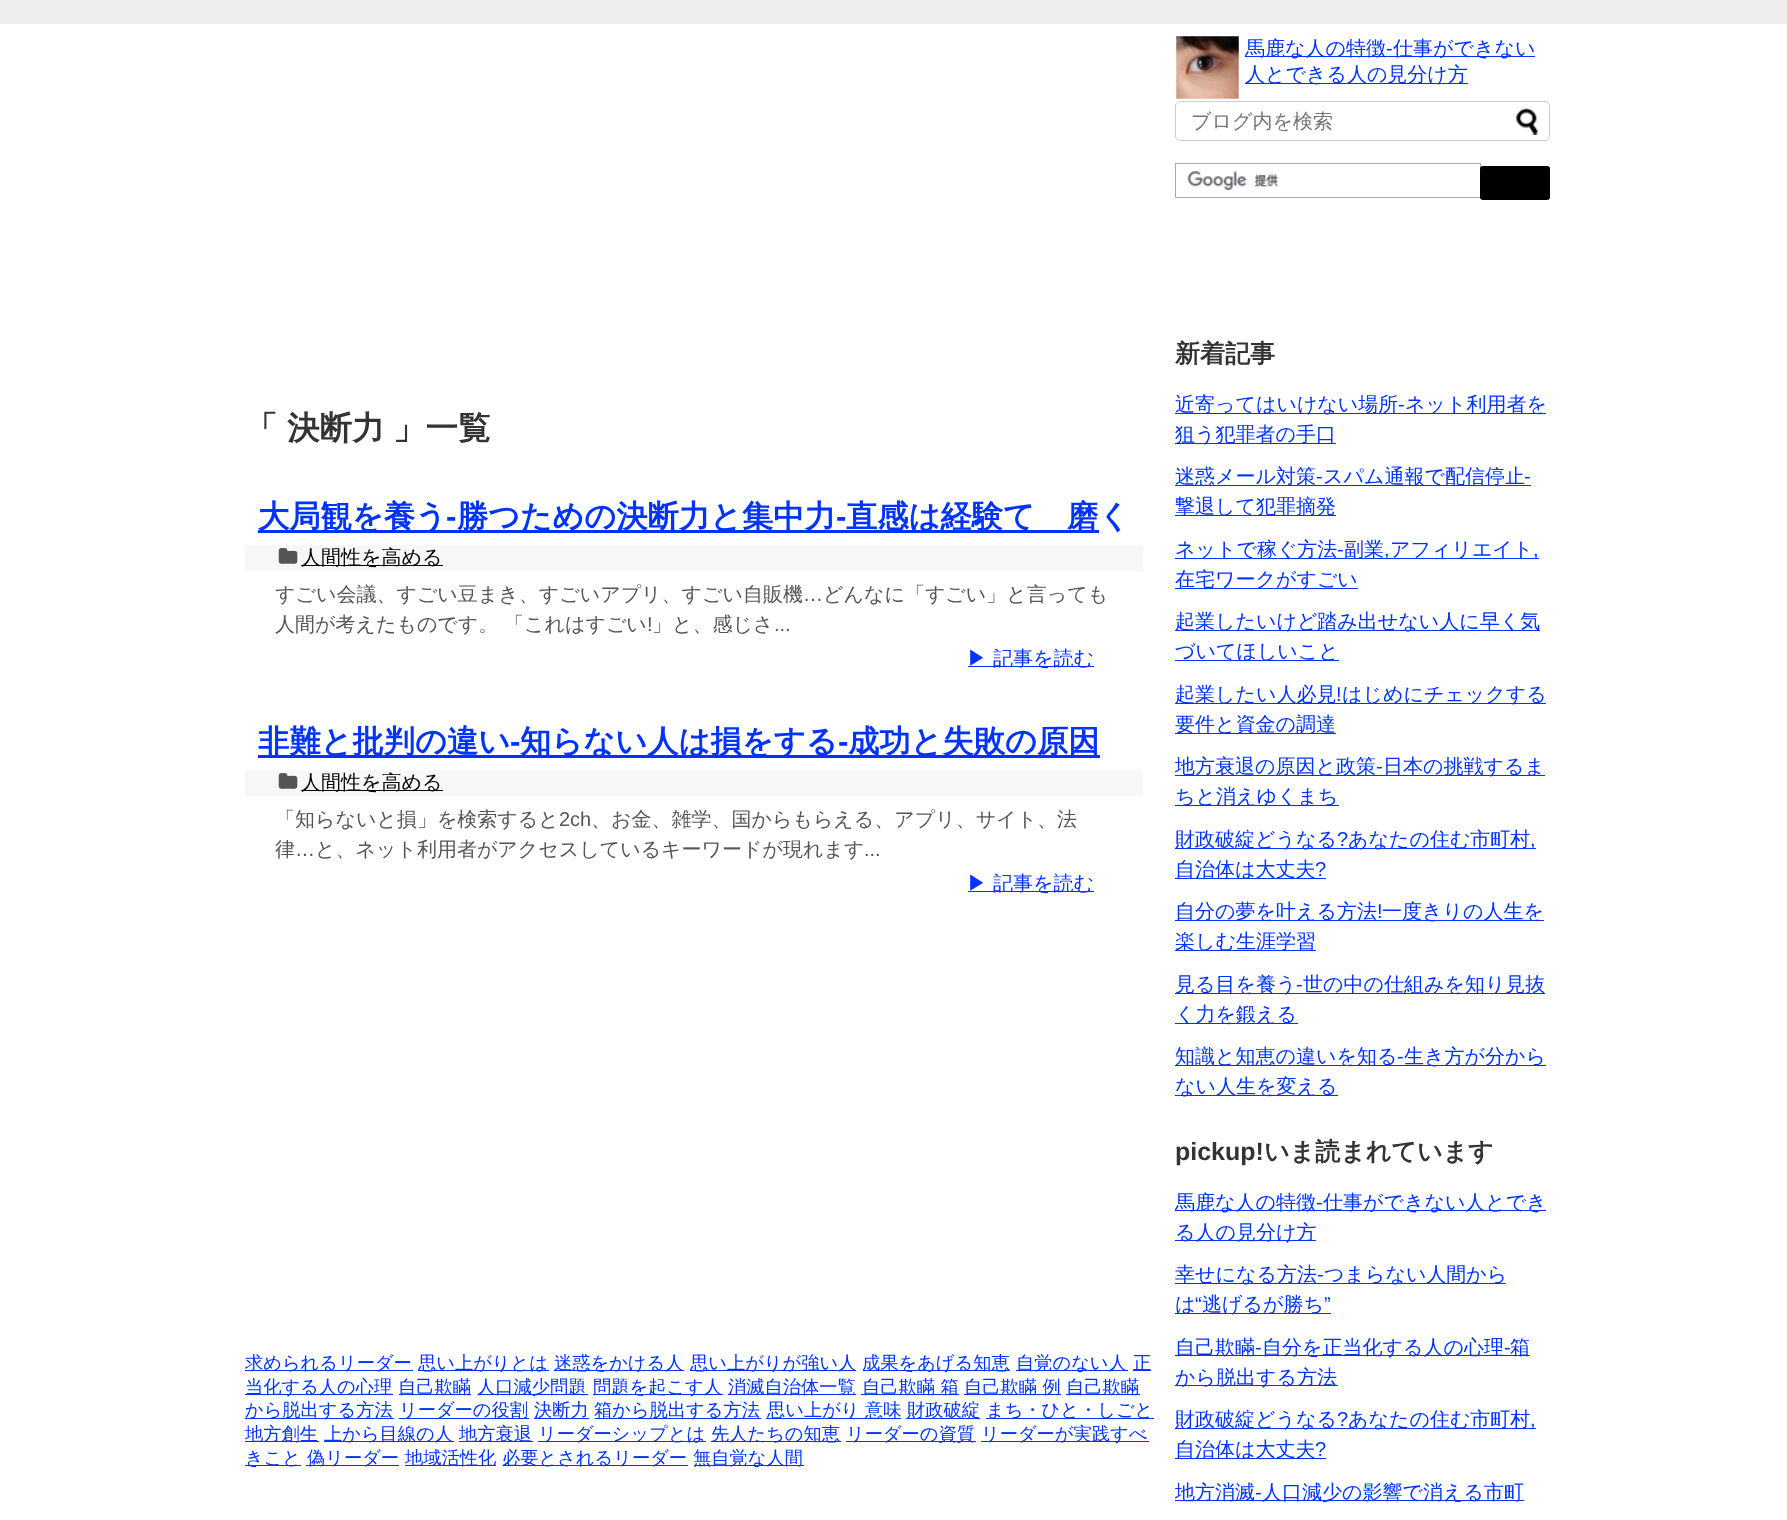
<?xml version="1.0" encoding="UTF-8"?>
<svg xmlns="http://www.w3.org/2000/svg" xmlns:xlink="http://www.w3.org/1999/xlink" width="1787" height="1520">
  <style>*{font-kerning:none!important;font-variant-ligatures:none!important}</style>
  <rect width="100%" height="100%" fill="#ffffff" />
  <rect width="1787" height="24" fill="#eeeeee" />
  <rect x="258" y="530" width="841" height="3" fill="#0033ff" />
  <rect x="245" y="545" width="898" height="26" fill="#f7f7f7" />
  <image x="278" y="548" width="20" height="16" xlink:href="image1.png" />
  <rect x="301" y="565" width="142" height="1" fill="#000000" />
  <rect x="968" y="666" width="126" height="1" fill="#0033ff" />
  <rect x="258" y="755" width="842" height="3" fill="#0033ff" />
  <rect x="245" y="770" width="898" height="26" fill="#f7f7f7" />
  <image x="278" y="773" width="20" height="16" xlink:href="image1.png" />
  <rect x="301" y="790" width="142" height="1" fill="#000000" />
  <rect x="968" y="891" width="126" height="1" fill="#0033ff" />
  <rect x="245" y="1370" width="168" height="1" fill="#0033ff" />
  <rect x="418" y="1370" width="131" height="1" fill="#0033ff" />
  <rect x="554" y="1370" width="130" height="1" fill="#0033ff" />
  <rect x="690" y="1370" width="166" height="1" fill="#0033ff" />
  <rect x="863" y="1370" width="147" height="1" fill="#0033ff" />
  <rect x="1016" y="1370" width="112" height="1" fill="#0033ff" />
  <rect x="1133" y="1370" width="18" height="1" fill="#0033ff" />
  <rect x="245" y="1394" width="148" height="1" fill="#0033ff" />
  <rect x="399" y="1394" width="72" height="1" fill="#0033ff" />
  <rect x="478" y="1394" width="110" height="1" fill="#0033ff" />
  <rect x="593" y="1394" width="130" height="1" fill="#0033ff" />
  <rect x="728" y="1394" width="128" height="1" fill="#0033ff" />
  <rect x="861" y="1394" width="98" height="1" fill="#0033ff" />
  <rect x="964" y="1394" width="97" height="1" fill="#0033ff" />
  <rect x="1066" y="1394" width="74" height="1" fill="#0033ff" />
  <rect x="245" y="1418" width="149" height="1" fill="#0033ff" />
  <rect x="399" y="1418" width="130" height="1" fill="#0033ff" />
  <rect x="534" y="1418" width="55" height="1" fill="#0033ff" />
  <rect x="595" y="1418" width="166" height="1" fill="#0033ff" />
  <rect x="766" y="1418" width="135" height="1" fill="#0033ff" />
  <rect x="906" y="1418" width="74" height="1" fill="#0033ff" />
  <rect x="986" y="1418" width="168" height="1" fill="#0033ff" />
  <rect x="245" y="1441" width="74" height="1" fill="#0033ff" />
  <rect x="324" y="1441" width="130" height="1" fill="#0033ff" />
  <rect x="459" y="1441" width="74" height="1" fill="#0033ff" />
  <rect x="538" y="1441" width="168" height="1" fill="#0033ff" />
  <rect x="711" y="1441" width="130" height="1" fill="#0033ff" />
  <rect x="846" y="1441" width="130" height="1" fill="#0033ff" />
  <rect x="981" y="1441" width="168" height="1" fill="#0033ff" />
  <rect x="245" y="1465" width="56" height="1" fill="#0033ff" />
  <rect x="306" y="1465" width="93" height="1" fill="#0033ff" />
  <rect x="405" y="1465" width="91" height="1" fill="#0033ff" />
  <rect x="503" y="1465" width="185" height="1" fill="#0033ff" />
  <rect x="694" y="1465" width="110" height="1" fill="#0033ff" />
  <image x="1176" y="36" width="63" height="63" xlink:href="image2.png" />
  <rect x="1245" y="56" width="290" height="1" fill="#0033ff" />
  <rect x="1245" y="83" width="223" height="1" fill="#0033ff" />
  <rect x="1175.5" y="101.5" width="374" height="39" rx="4.5" fill="none" stroke="#cccccc" />
  <image x="1516" y="108" width="22" height="27" xlink:href="image3.png" />
  <rect x="1175.5" y="163.5" width="305" height="34" fill="none" stroke="#aaaaaa" />
  <image x="1187" y="171" width="92" height="19" xlink:href="image4.png" />
  <rect x="1480.5" y="166.5" width="69" height="33" rx="2" fill="#000000" stroke="#000000" />
  <rect x="1175" y="413" width="371" height="1" fill="#0033ff" />
  <rect x="1175" y="443" width="161" height="1" fill="#0033ff" />
  <rect x="1175" y="485" width="356" height="1" fill="#0033ff" />
  <rect x="1175" y="515" width="161" height="1" fill="#0033ff" />
  <rect x="1175" y="558" width="364" height="1" fill="#0033ff" />
  <rect x="1175" y="588" width="183" height="1" fill="#0033ff" />
  <rect x="1175" y="630" width="365" height="1" fill="#0033ff" />
  <rect x="1175" y="660" width="164" height="1" fill="#0033ff" />
  <rect x="1175" y="703" width="371" height="1" fill="#0033ff" />
  <rect x="1175" y="733" width="161" height="1" fill="#0033ff" />
  <rect x="1175" y="775" width="370" height="1" fill="#0033ff" />
  <rect x="1175" y="805" width="164" height="1" fill="#0033ff" />
  <rect x="1175" y="848" width="361" height="1" fill="#0033ff" />
  <rect x="1175" y="878" width="151" height="1" fill="#0033ff" />
  <rect x="1175" y="920" width="369" height="1" fill="#0033ff" />
  <rect x="1175" y="950" width="141" height="1" fill="#0033ff" />
  <rect x="1175" y="993" width="370" height="1" fill="#0033ff" />
  <rect x="1175" y="1023" width="123" height="1" fill="#0033ff" />
  <rect x="1175" y="1065" width="371" height="1" fill="#0033ff" />
  <rect x="1175" y="1095" width="163" height="1" fill="#0033ff" />
  <rect x="1175" y="1210" width="371" height="1" fill="#0033ff" />
  <rect x="1175" y="1240" width="141" height="1" fill="#0033ff" />
  <rect x="1175" y="1283" width="331" height="1" fill="#0033ff" />
  <rect x="1175" y="1313" width="156" height="1" fill="#0033ff" />
  <rect x="1175" y="1355" width="355" height="1" fill="#0033ff" />
  <rect x="1175" y="1385" width="163" height="1" fill="#0033ff" />
  <rect x="1175" y="1428" width="361" height="1" fill="#0033ff" />
  <rect x="1175" y="1458" width="151" height="1" fill="#0033ff" />
  <rect x="1175" y="1500" width="349" height="1" fill="#0033ff" />
  <text x="245" y="439" style="font-family: WenQuanYi Zen Hei; font-size: 32.5px; font-weight: bold; fill: #333333">「</text>
  <text x="287" y="439" style="font-family: WenQuanYi Zen Hei; font-size: 32.5px; font-weight: bold; fill: #333333">決断力</text>
  <text x="393" y="439" style="font-family: WenQuanYi Zen Hei; font-size: 32.5px; font-weight: bold; fill: #333333">」一覧</text>
  <text x="258" y="527" style="font-family: WenQuanYi Zen Hei; font-size: 31.25px; font-weight: bold; fill: #0033ff">大局観を養う</text>
  <text x="446" y="527" style="font-family: Liberation Sans; font-size: 31.25px; font-weight: bold; fill: #0033ff">-</text>
  <text x="457" y="527" style="font-family: WenQuanYi Zen Hei; font-size: 31.25px; font-weight: bold; fill: #0033ff">勝つための決断力と集中力</text>
  <text x="836" y="527" style="font-family: Liberation Sans; font-size: 31.25px; font-weight: bold; fill: #0033ff">-</text>
  <text x="846" y="527" style="font-family: WenQuanYi Zen Hei; font-size: 31.25px; font-weight: bold; fill: #0033ff">直感は経験で磨く</text>
  <text x="301" y="564" style="font-family: WenQuanYi Zen Hei; font-size: 20px; font-weight: 500; fill: #000000">人間性を高める</text>
  <text x="275" y="601" style="font-family: WenQuanYi Zen Hei; font-size: 20px; font-weight: 500; fill: #555555">すごい会議、すごい豆まき、すごいアプリ、すごい自販機</text>
  <text x="803" y="601" style="font-family: Liberation Sans; font-size: 20px; fill: #555555">…</text>
  <text x="823" y="601" style="font-family: WenQuanYi Zen Hei; font-size: 20px; font-weight: 500; fill: #555555">どんなに「すごい」と言っても</text>
  <text x="275" y="631" style="font-family: WenQuanYi Zen Hei; font-size: 20px; font-weight: 500; fill: #555555">人間が考えたものです。</text>
  <text x="504" y="631" style="font-family: WenQuanYi Zen Hei; font-size: 20px; font-weight: 500; fill: #555555">「これはすごい</text>
  <text x="647" y="631" style="font-family: Liberation Sans; font-size: 20px; fill: #555555">!</text>
  <text x="652" y="631" style="font-family: WenQuanYi Zen Hei; font-size: 20px; font-weight: 500; fill: #555555">」と、感じさ</text>
  <text x="774" y="631" style="font-family: Liberation Sans; font-size: 20px; fill: #555555">...</text>
  <text x="967" y="665" style="font-family: WenQuanYi Zen Hei; font-size: 20px; font-weight: 500; fill: #0033ff">▶ 記事を読む</text>
  <text x="258" y="752" style="font-family: WenQuanYi Zen Hei; font-size: 31.25px; font-weight: bold; fill: #0033ff">非難と批判の違い</text>
  <text x="510" y="752" style="font-family: Liberation Sans; font-size: 31.25px; font-weight: bold; fill: #0033ff">-</text>
  <text x="520" y="752" style="font-family: WenQuanYi Zen Hei; font-size: 31.25px; font-weight: bold; fill: #0033ff">知らない人は損をする</text>
  <text x="838" y="752" style="font-family: Liberation Sans; font-size: 31.25px; font-weight: bold; fill: #0033ff">-</text>
  <text x="848" y="752" style="font-family: WenQuanYi Zen Hei; font-size: 31.25px; font-weight: bold; fill: #0033ff">成功と失敗の原因</text>
  <text x="301" y="789" style="font-family: WenQuanYi Zen Hei; font-size: 20px; font-weight: 500; fill: #000000">人間性を高める</text>
  <text x="275" y="826" style="font-family: WenQuanYi Zen Hei; font-size: 20px; font-weight: 500; fill: #555555">「知らないと損」を検索すると</text>
  <text x="559" y="826" style="font-family: Liberation Sans; font-size: 20px; fill: #555555">2ch</text>
  <text x="591" y="826" style="font-family: WenQuanYi Zen Hei; font-size: 20px; font-weight: 500; fill: #555555">、お金、雑学、国からもらえる、アプリ、サイト、法</text>
  <text x="275" y="856" style="font-family: WenQuanYi Zen Hei; font-size: 20px; font-weight: 500; fill: #555555">律</text>
  <text x="295" y="856" style="font-family: Liberation Sans; font-size: 20px; fill: #555555">…</text>
  <text x="315" y="856" style="font-family: WenQuanYi Zen Hei; font-size: 20px; font-weight: 500; fill: #555555">と、ネット利用者がアクセスしているキーワードが現れます</text>
  <text x="864" y="856" style="font-family: Liberation Sans; font-size: 20px; fill: #555555">...</text>
  <text x="967" y="890" style="font-family: WenQuanYi Zen Hei; font-size: 20px; font-weight: 500; fill: #0033ff">▶ 記事を読む</text>
  <text x="245" y="1369" style="font-family: WenQuanYi Zen Hei; font-size: 18.25px; font-weight: 500; fill: #0033ff">求められるリーダー</text>
  <text x="418" y="1369" style="font-family: WenQuanYi Zen Hei; font-size: 18.25px; font-weight: 500; fill: #0033ff">思い上がりとは</text>
  <text x="554" y="1369" style="font-family: WenQuanYi Zen Hei; font-size: 18.25px; font-weight: 500; fill: #0033ff">迷惑をかける人</text>
  <text x="690" y="1369" style="font-family: WenQuanYi Zen Hei; font-size: 18.25px; font-weight: 500; fill: #0033ff">思い上がりが強い人</text>
  <text x="862" y="1369" style="font-family: WenQuanYi Zen Hei; font-size: 18.25px; font-weight: 500; fill: #0033ff">成果をあげる知恵</text>
  <text x="1016" y="1369" style="font-family: WenQuanYi Zen Hei; font-size: 18.25px; font-weight: 500; fill: #0033ff">自覚のない人</text>
  <text x="1133" y="1369" style="font-family: WenQuanYi Zen Hei; font-size: 18.25px; font-weight: 500; fill: #0033ff">正</text>
  <text x="245" y="1393" style="font-family: WenQuanYi Zen Hei; font-size: 18.25px; font-weight: 500; fill: #0033ff">当化する人の心理</text>
  <text x="398" y="1393" style="font-family: WenQuanYi Zen Hei; font-size: 18.25px; font-weight: 500; fill: #0033ff">自己欺瞞</text>
  <text x="477" y="1393" style="font-family: WenQuanYi Zen Hei; font-size: 18.25px; font-weight: 500; fill: #0033ff">人口減少問題</text>
  <text x="593" y="1393" style="font-family: WenQuanYi Zen Hei; font-size: 18.25px; font-weight: 500; fill: #0033ff">問題を起こす人</text>
  <text x="728" y="1393" style="font-family: WenQuanYi Zen Hei; font-size: 18.25px; font-weight: 500; fill: #0033ff">消滅自治体一覧</text>
  <text x="862" y="1393" style="font-family: WenQuanYi Zen Hei; font-size: 18.25px; font-weight: 500; fill: #0033ff">自己欺瞞 箱</text>
  <text x="964" y="1393" style="font-family: WenQuanYi Zen Hei; font-size: 18.25px; font-weight: 500; fill: #0033ff">自己欺瞞 例</text>
  <text x="1066" y="1393" style="font-family: WenQuanYi Zen Hei; font-size: 18.25px; font-weight: 500; fill: #0033ff">自己欺瞞</text>
  <text x="245" y="1416" style="font-family: WenQuanYi Zen Hei; font-size: 18.25px; font-weight: 500; fill: #0033ff">から脱出する方法</text>
  <text x="399" y="1416" style="font-family: WenQuanYi Zen Hei; font-size: 18.25px; font-weight: 500; fill: #0033ff">リーダーの役割</text>
  <text x="534" y="1416" style="font-family: WenQuanYi Zen Hei; font-size: 18.25px; font-weight: 500; fill: #0033ff">決断力</text>
  <text x="594" y="1416" style="font-family: WenQuanYi Zen Hei; font-size: 18.25px; font-weight: 500; fill: #0033ff">箱から脱出する方法</text>
  <text x="767" y="1416" style="font-family: WenQuanYi Zen Hei; font-size: 18.25px; font-weight: 500; fill: #0033ff">思い上がり 意味</text>
  <text x="907" y="1416" style="font-family: WenQuanYi Zen Hei; font-size: 18.25px; font-weight: 500; fill: #0033ff">財政破綻</text>
  <text x="986" y="1416" style="font-family: WenQuanYi Zen Hei; font-size: 18.25px; font-weight: 500; fill: #0033ff">まち・ひと・しごと</text>
  <text x="245" y="1440" style="font-family: WenQuanYi Zen Hei; font-size: 18.25px; font-weight: 500; fill: #0033ff">地方創生</text>
  <text x="324" y="1440" style="font-family: WenQuanYi Zen Hei; font-size: 18.25px; font-weight: 500; fill: #0033ff">上から目線の人</text>
  <text x="459" y="1440" style="font-family: WenQuanYi Zen Hei; font-size: 18.25px; font-weight: 500; fill: #0033ff">地方衰退</text>
  <text x="538" y="1440" style="font-family: WenQuanYi Zen Hei; font-size: 18.25px; font-weight: 500; fill: #0033ff">リーダーシップとは</text>
  <text x="711" y="1440" style="font-family: WenQuanYi Zen Hei; font-size: 18.25px; font-weight: 500; fill: #0033ff">先人たちの知恵</text>
  <text x="846" y="1440" style="font-family: WenQuanYi Zen Hei; font-size: 18.25px; font-weight: 500; fill: #0033ff">リーダーの資質</text>
  <text x="981" y="1440" style="font-family: WenQuanYi Zen Hei; font-size: 18.25px; font-weight: 500; fill: #0033ff">リーダーが実践すべ</text>
  <text x="245" y="1464" style="font-family: WenQuanYi Zen Hei; font-size: 18.25px; font-weight: 500; fill: #0033ff">きこと</text>
  <text x="307" y="1464" style="font-family: WenQuanYi Zen Hei; font-size: 18.25px; font-weight: 500; fill: #0033ff">偽リーダー</text>
  <text x="405" y="1464" style="font-family: WenQuanYi Zen Hei; font-size: 18.25px; font-weight: 500; fill: #0033ff">地域活性化</text>
  <text x="502" y="1464" style="font-family: WenQuanYi Zen Hei; font-size: 18.25px; font-weight: 500; fill: #0033ff">必要とされるリーダー</text>
  <text x="693" y="1464" style="font-family: WenQuanYi Zen Hei; font-size: 18.25px; font-weight: 500; fill: #0033ff">無自覚な人間</text>
  <text x="1245" y="55" style="font-family: WenQuanYi Zen Hei; font-size: 20px; font-weight: 500; fill: #0033ff">馬鹿な人の特徴</text>
  <text x="1386" y="55" style="font-family: Liberation Sans; font-size: 20px; fill: #0033ff">-</text>
  <text x="1393" y="55" style="font-family: WenQuanYi Zen Hei; font-size: 20px; font-weight: 500; fill: #0033ff">仕事ができない</text>
  <text x="1245" y="81" style="font-family: WenQuanYi Zen Hei; font-size: 20px; font-weight: 500; fill: #0033ff">人とできる人の見分け方</text>
  <text x="1191" y="128" style="font-family: WenQuanYi Zen Hei; font-size: 20px; font-weight: 500; fill: #757575">ブログ内を検索</text>
  <text x="1175" y="362" style="font-family: WenQuanYi Zen Hei; font-size: 25px; font-weight: bold; fill: #333333">新着記事</text>
  <text x="1175" y="411" style="font-family: WenQuanYi Zen Hei; font-size: 20px; font-weight: 500; fill: #0033ff">近寄ってはいけない場所</text>
  <text x="1398" y="411" style="font-family: Liberation Sans; font-size: 20px; fill: #0033ff">-</text>
  <text x="1405" y="411" style="font-family: WenQuanYi Zen Hei; font-size: 20px; font-weight: 500; fill: #0033ff">ネット利用者を</text>
  <text x="1175" y="441" style="font-family: WenQuanYi Zen Hei; font-size: 20px; font-weight: 500; fill: #0033ff">狙う犯罪者の手口</text>
  <text x="1175" y="483" style="font-family: WenQuanYi Zen Hei; font-size: 20px; font-weight: 500; fill: #0033ff">迷惑メール対策</text>
  <text x="1316" y="483" style="font-family: Liberation Sans; font-size: 20px; fill: #0033ff">-</text>
  <text x="1323" y="483" style="font-family: WenQuanYi Zen Hei; font-size: 20px; font-weight: 500; fill: #0033ff">スパム通報で配信停止</text>
  <text x="1524" y="483" style="font-family: Liberation Sans; font-size: 20px; fill: #0033ff">-</text>
  <text x="1175" y="513" style="font-family: WenQuanYi Zen Hei; font-size: 20px; font-weight: 500; fill: #0033ff">撃退して犯罪摘発</text>
  <text x="1175" y="556" style="font-family: WenQuanYi Zen Hei; font-size: 20px; font-weight: 500; fill: #0033ff">ネットで稼ぐ方法</text>
  <text x="1337" y="556" style="font-family: Liberation Sans; font-size: 20px; fill: #0033ff">-</text>
  <text x="1344" y="556" style="font-family: WenQuanYi Zen Hei; font-size: 20px; font-weight: 500; fill: #0033ff">副業</text>
  <text x="1390" y="556" style="font-family: WenQuanYi Zen Hei; font-size: 20px; font-weight: 500; fill: #0033ff">アフィリエイト</text>
  <text x="1384" y="556" style="font-family: Liberation Sans; font-size: 20px; fill: #0033ff">,</text>
  <text x="1533" y="556" style="font-family: Liberation Sans; font-size: 20px; fill: #0033ff">,</text>
  <text x="1175" y="586" style="font-family: WenQuanYi Zen Hei; font-size: 20px; font-weight: 500; fill: #0033ff">在宅ワークがすごい</text>
  <text x="1175" y="628" style="font-family: WenQuanYi Zen Hei; font-size: 20px; font-weight: 500; fill: #0033ff">起業したいけど踏み出せない人に早く気</text>
  <text x="1175" y="658" style="font-family: WenQuanYi Zen Hei; font-size: 20px; font-weight: 500; fill: #0033ff">づいてほしいこと</text>
  <text x="1175" y="701" style="font-family: WenQuanYi Zen Hei; font-size: 20px; font-weight: 500; fill: #0033ff">起業したい人必見</text>
  <text x="1336" y="701" style="font-family: Liberation Sans; font-size: 20px; fill: #0033ff">!</text>
  <text x="1342" y="701" style="font-family: WenQuanYi Zen Hei; font-size: 20px; font-weight: 500; fill: #0033ff">はじめにチェックする</text>
  <text x="1175" y="731" style="font-family: WenQuanYi Zen Hei; font-size: 20px; font-weight: 500; fill: #0033ff">要件と資金の調達</text>
  <text x="1175" y="773" style="font-family: WenQuanYi Zen Hei; font-size: 20px; font-weight: 500; fill: #0033ff">地方衰退の原因と政策</text>
  <text x="1376" y="773" style="font-family: Liberation Sans; font-size: 20px; fill: #0033ff">-</text>
  <text x="1383" y="773" style="font-family: WenQuanYi Zen Hei; font-size: 20px; font-weight: 500; fill: #0033ff">日本の挑戦するま</text>
  <text x="1175" y="803" style="font-family: WenQuanYi Zen Hei; font-size: 20px; font-weight: 500; fill: #0033ff">ちと消えゆくまち</text>
  <text x="1175" y="846" style="font-family: WenQuanYi Zen Hei; font-size: 20px; font-weight: 500; fill: #0033ff">財政破綻どうなる</text>
  <text x="1337" y="846" style="font-family: Liberation Sans; font-size: 20px; fill: #0033ff">?</text>
  <text x="1348" y="846" style="font-family: WenQuanYi Zen Hei; font-size: 20px; font-weight: 500; fill: #0033ff">あなたの住む市町村</text>
  <text x="1530" y="846" style="font-family: Liberation Sans; font-size: 20px; fill: #0033ff">,</text>
  <text x="1175" y="876" style="font-family: WenQuanYi Zen Hei; font-size: 20px; font-weight: 500; fill: #0033ff">自治体は大丈夫</text>
  <text x="1315" y="876" style="font-family: Liberation Sans; font-size: 20px; fill: #0033ff">?</text>
  <text x="1175" y="918" style="font-family: WenQuanYi Zen Hei; font-size: 20px; font-weight: 500; fill: #0033ff">自分の夢を叶える方法</text>
  <text x="1377" y="918" style="font-family: Liberation Sans; font-size: 20px; fill: #0033ff">!</text>
  <text x="1382" y="918" style="font-family: WenQuanYi Zen Hei; font-size: 20px; font-weight: 500; fill: #0033ff">一度きりの人生を</text>
  <text x="1175" y="948" style="font-family: WenQuanYi Zen Hei; font-size: 20px; font-weight: 500; fill: #0033ff">楽しむ生涯学習</text>
  <text x="1175" y="991" style="font-family: WenQuanYi Zen Hei; font-size: 20px; font-weight: 500; fill: #0033ff">見る目を養う</text>
  <text x="1296" y="991" style="font-family: Liberation Sans; font-size: 20px; fill: #0033ff">-</text>
  <text x="1303" y="991" style="font-family: WenQuanYi Zen Hei; font-size: 20px; font-weight: 500; fill: #0033ff">世の中の仕組みを知り見抜</text>
  <text x="1175" y="1021" style="font-family: WenQuanYi Zen Hei; font-size: 20px; font-weight: 500; fill: #0033ff">く力を鍛える</text>
  <text x="1175" y="1063" style="font-family: WenQuanYi Zen Hei; font-size: 20px; font-weight: 500; fill: #0033ff">知識と知恵の違いを知る</text>
  <text x="1397" y="1063" style="font-family: Liberation Sans; font-size: 20px; fill: #0033ff">-</text>
  <text x="1404" y="1063" style="font-family: WenQuanYi Zen Hei; font-size: 20px; font-weight: 500; fill: #0033ff">生き方が分から</text>
  <text x="1175" y="1093" style="font-family: WenQuanYi Zen Hei; font-size: 20px; font-weight: 500; fill: #0033ff">ない人生を変える</text>
  <text x="1175" y="1160" style="font-family: Liberation Sans; font-size: 25px; font-weight: bold; fill: #333333">pickup!</text>
  <text x="1264" y="1160" style="font-family: WenQuanYi Zen Hei; font-size: 25px; font-weight: bold; fill: #333333">いま読まれています</text>
  <text x="1175" y="1209" style="font-family: WenQuanYi Zen Hei; font-size: 20px; font-weight: 500; fill: #0033ff">馬鹿な人の特徴</text>
  <text x="1316" y="1209" style="font-family: Liberation Sans; font-size: 20px; fill: #0033ff">-</text>
  <text x="1323" y="1209" style="font-family: WenQuanYi Zen Hei; font-size: 20px; font-weight: 500; fill: #0033ff">仕事ができない人とでき</text>
  <text x="1175" y="1239" style="font-family: WenQuanYi Zen Hei; font-size: 20px; font-weight: 500; fill: #0033ff">る人の見分け方</text>
  <text x="1175" y="1281" style="font-family: WenQuanYi Zen Hei; font-size: 20px; font-weight: 500; fill: #0033ff">幸せになる方法</text>
  <text x="1317" y="1281" style="font-family: Liberation Sans; font-size: 20px; fill: #0033ff">-</text>
  <text x="1324" y="1281" style="font-family: WenQuanYi Zen Hei; font-size: 20px; font-weight: 500; fill: #0033ff">つまらない人間から</text>
  <text x="1175" y="1311" style="font-family: WenQuanYi Zen Hei; font-size: 20px; font-weight: 500; fill: #0033ff">は</text>
  <text x="1195" y="1311" style="font-family: Liberation Sans; font-size: 20px; fill: #0033ff">“</text>
  <text x="1202" y="1311" style="font-family: WenQuanYi Zen Hei; font-size: 20px; font-weight: 500; fill: #0033ff">逃げるが勝ち</text>
  <text x="1324" y="1311" style="font-family: Liberation Sans; font-size: 20px; fill: #0033ff">”</text>
  <text x="1175" y="1354" style="font-family: WenQuanYi Zen Hei; font-size: 20px; font-weight: 500; fill: #0033ff">自己欺瞞</text>
  <text x="1255" y="1354" style="font-family: Liberation Sans; font-size: 20px; fill: #0033ff">-</text>
  <text x="1262" y="1354" style="font-family: WenQuanYi Zen Hei; font-size: 20px; font-weight: 500; fill: #0033ff">自分を正当化する人の心理</text>
  <text x="1504" y="1354" style="font-family: Liberation Sans; font-size: 20px; fill: #0033ff">-</text>
  <text x="1510" y="1354" style="font-family: WenQuanYi Zen Hei; font-size: 20px; font-weight: 500; fill: #0033ff">箱</text>
  <text x="1175" y="1384" style="font-family: WenQuanYi Zen Hei; font-size: 20px; font-weight: 500; fill: #0033ff">から脱出する方法</text>
  <text x="1175" y="1426" style="font-family: WenQuanYi Zen Hei; font-size: 20px; font-weight: 500; fill: #0033ff">財政破綻どうなる</text>
  <text x="1337" y="1426" style="font-family: Liberation Sans; font-size: 20px; fill: #0033ff">?</text>
  <text x="1348" y="1426" style="font-family: WenQuanYi Zen Hei; font-size: 20px; font-weight: 500; fill: #0033ff">あなたの住む市町村</text>
  <text x="1530" y="1426" style="font-family: Liberation Sans; font-size: 20px; fill: #0033ff">,</text>
  <text x="1175" y="1456" style="font-family: WenQuanYi Zen Hei; font-size: 20px; font-weight: 500; fill: #0033ff">自治体は大丈夫</text>
  <text x="1315" y="1456" style="font-family: Liberation Sans; font-size: 20px; fill: #0033ff">?</text>
  <text x="1175" y="1499" style="font-family: WenQuanYi Zen Hei; font-size: 20px; font-weight: 500; fill: #0033ff">地方消滅</text>
  <text x="1255" y="1499" style="font-family: Liberation Sans; font-size: 20px; fill: #0033ff">-</text>
  <text x="1262" y="1499" style="font-family: WenQuanYi Zen Hei; font-size: 20px; font-weight: 500; fill: #0033ff">人口減少の影響で消える市町</text>
</svg>
